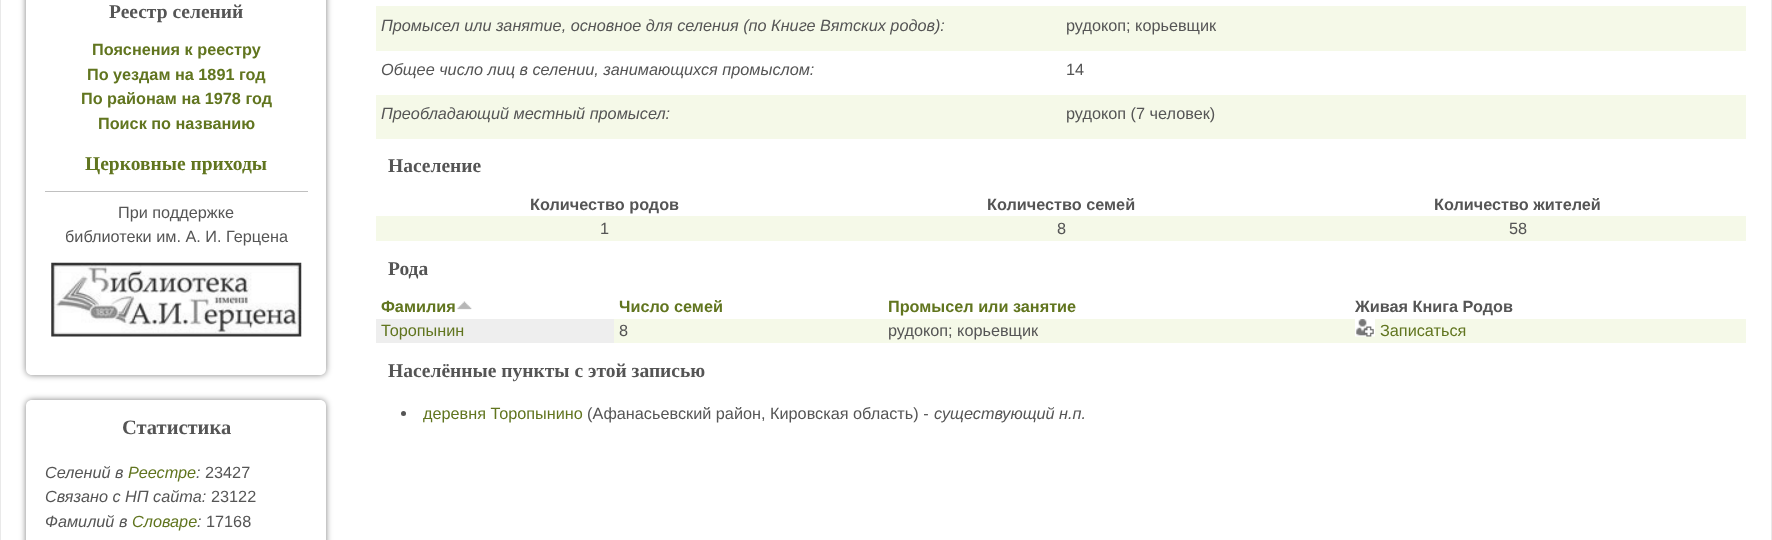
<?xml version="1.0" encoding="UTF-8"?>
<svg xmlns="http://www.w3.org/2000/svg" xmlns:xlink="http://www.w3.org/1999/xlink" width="1772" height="540">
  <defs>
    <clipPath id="clip1"><path d="M 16 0 h 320 v 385 h -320 z m 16 -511 h 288 c 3.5 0 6 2.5 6 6 v 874 c 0 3.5 -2.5 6 -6 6 h -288 c -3.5 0 -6 -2.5 -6 -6 v -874 c 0 -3.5 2.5 -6 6 -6 z" clip-rule="evenodd" /></clipPath>
    <clipPath id="clip2"><path d="M 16 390 h 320 v 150 h -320 z m 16 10 h 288 c 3.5 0 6 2.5 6 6 v 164 c 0 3.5 -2.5 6 -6 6 h -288 c -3.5 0 -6 -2.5 -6 -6 v -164 c 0 -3.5 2.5 -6 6 -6 z" clip-rule="evenodd" /></clipPath>
  </defs>
  <rect width="100%" height="100%" fill="#ffffff" />
  <rect x="1771" width="1" height="540" fill="#e9e9e9" />
  <rect width="1" height="540" fill="#e9e9e9" />
  <g clip-path="url(#clip1)">
    <rect x="26" y="-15" width="300" height="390" rx="6" fill="#000000" fill-opacity="0.5" filter="blur(3px)" />
  </g>
  <rect x="45" y="191" width="263" height="1" fill="#c0c0c0" />
  <image x="51" y="262" width="251" height="75" xlink:href="image1.png" />
  <g clip-path="url(#clip2)">
    <rect x="26" y="400" width="300" height="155" rx="6" fill="#000000" fill-opacity="0.5" filter="blur(3px)" />
  </g>
  <rect x="376" y="6" width="1370" height="45" fill="#f5f9e8" />
  <rect x="376" y="95" width="1370" height="44" fill="#f5f9e8" />
  <rect x="376" y="216" width="1370" height="25" fill="#f5f9e8" />
  <image x="457" y="301" width="15" height="9" xlink:href="image2.png" />
  <rect x="614" y="319" width="1132" height="24" fill="#f5f9e8" />
  <rect x="376" y="319" width="238" height="24" fill="#eeeeee" />
  <image x="1355" y="319" width="20" height="18" xlink:href="image3.png" />
  <circle cx="403.5" cy="413.5" r="2.5" fill="#555555" />
  <text x="109" y="18" style="font-family: Liberation Serif; font-size: 19.5px; font-weight: bold; fill: #555555">Реестр селений</text>
  <text x="92" y="55" style="font-family: Liberation Sans; font-size: 16.25px; font-weight: bold; fill: #61751f">Пояснения к реестру</text>
  <text x="87" y="80" style="font-family: Liberation Sans; font-size: 16.25px; font-weight: bold; fill: #61751f">По уездам на 1891 год</text>
  <text x="81" y="104" style="font-family: Liberation Sans; font-size: 16.25px; font-weight: bold; fill: #61751f">По районам на 1978 год</text>
  <text x="98" y="129" style="font-family: Liberation Sans; font-size: 16.25px; font-weight: bold; fill: #61751f">Поиск по названию</text>
  <text x="85" y="170" style="font-family: Liberation Serif; font-size: 19.5px; font-weight: bold; fill: #61751f">Церковные приходы</text>
  <text x="118" y="218" style="font-family: Liberation Sans; font-size: 16.25px; fill: #555555">При поддержке</text>
  <text x="65" y="242" style="font-family: Liberation Sans; font-size: 16.25px; fill: #555555">библиотеки им. А. И. Герцена</text>
  <text x="122" y="434" style="font-family: Liberation Serif; font-size: 20.5px; font-weight: bold; fill: #555555">Статистика</text>
  <text x="45" y="478" style="font-family: Liberation Sans; font-size: 16.25px; font-style: italic; fill: #555555">Cелений в</text>
  <text x="128" y="478" style="font-family: Liberation Sans; font-size: 16.25px; font-style: italic; fill: #61751f">Реестре</text>
  <text x="196" y="478" style="font-family: Liberation Sans; font-size: 16.25px; font-style: italic; fill: #555555">:</text>
  <text x="205" y="478" style="font-family: Liberation Sans; font-size: 16.25px; fill: #555555">23427</text>
  <text x="45" y="502" style="font-family: Liberation Sans; font-size: 16.25px; font-style: italic; fill: #555555">Связано с НП сайта:</text>
  <text x="211" y="502" style="font-family: Liberation Sans; font-size: 16.25px; fill: #555555">23122</text>
  <text x="45" y="527" style="font-family: Liberation Sans; font-size: 16.25px; font-style: italic; fill: #555555">Фамилий в</text>
  <text x="132" y="527" style="font-family: Liberation Sans; font-size: 16.25px; font-style: italic; fill: #61751f">Cловаре</text>
  <text x="197" y="527" style="font-family: Liberation Sans; font-size: 16.25px; font-style: italic; fill: #555555">:</text>
  <text x="206" y="527" style="font-family: Liberation Sans; font-size: 16.25px; fill: #555555">17168</text>
  <text x="381" y="31" style="font-family: Liberation Sans; font-size: 16.25px; font-style: italic; fill: #555555">Промысел или занятие, основное для селения (по Книге Вятских родов):</text>
  <text x="1066" y="31" style="font-family: Liberation Sans; font-size: 16.25px; fill: #555555">рудокоп; корьевщик</text>
  <text x="381" y="75" style="font-family: Liberation Sans; font-size: 16.25px; font-style: italic; fill: #555555">Общее число лиц в селении, занимающихся промыслом:</text>
  <text x="1066" y="75" style="font-family: Liberation Sans; font-size: 16.25px; fill: #555555">14</text>
  <text x="381" y="119" style="font-family: Liberation Sans; font-size: 16.25px; font-style: italic; fill: #555555">Преобладающий местный промысел:</text>
  <text x="1066" y="119" style="font-family: Liberation Sans; font-size: 16.25px; fill: #555555">рудокоп (7 человек)</text>
  <text x="388" y="172" style="font-family: Liberation Serif; font-size: 19.5px; font-weight: bold; fill: #555555">Население</text>
  <text x="530" y="210" style="font-family: Liberation Sans; font-size: 16.25px; font-weight: bold; fill: #555555">Количество родов</text>
  <text x="987" y="210" style="font-family: Liberation Sans; font-size: 16.25px; font-weight: bold; fill: #555555">Количество семей</text>
  <text x="1434" y="210" style="font-family: Liberation Sans; font-size: 16.25px; font-weight: bold; fill: #555555">Количество жителей</text>
  <text x="600" y="234" style="font-family: Liberation Sans; font-size: 16.25px; fill: #555555">1</text>
  <text x="1057" y="234" style="font-family: Liberation Sans; font-size: 16.25px; fill: #555555">8</text>
  <text x="1509" y="234" style="font-family: Liberation Sans; font-size: 16.25px; fill: #555555">58</text>
  <text x="388" y="275" style="font-family: Liberation Serif; font-size: 19.5px; font-weight: bold; fill: #555555">Рода</text>
  <text x="381" y="312" style="font-family: Liberation Sans; font-size: 16.25px; font-weight: bold; fill: #61751f">Фамилия</text>
  <text x="619" y="312" style="font-family: Liberation Sans; font-size: 16.25px; font-weight: bold; fill: #61751f">Число семей</text>
  <text x="888" y="312" style="font-family: Liberation Sans; font-size: 16.25px; font-weight: bold; fill: #61751f">Промысел или занятие</text>
  <text x="1355" y="312" style="font-family: Liberation Sans; font-size: 16.25px; font-weight: bold; fill: #555555">Живая Книга Родов</text>
  <text x="381" y="336" style="font-family: Liberation Sans; font-size: 16.25px; fill: #61751f">Торопынин</text>
  <text x="619" y="336" style="font-family: Liberation Sans; font-size: 16.25px; fill: #555555">8</text>
  <text x="888" y="336" style="font-family: Liberation Sans; font-size: 16.25px; fill: #555555">рудокоп; корьевщик</text>
  <text x="1380" y="336" style="font-family: Liberation Sans; font-size: 16.25px; fill: #61751f">Записаться</text>
  <text x="388" y="377" style="font-family: Liberation Serif; font-size: 19.5px; font-weight: bold; fill: #555555">Населённые пункты с этой записью</text>
  <text x="423" y="419" style="font-family: Liberation Sans; font-size: 16.25px; fill: #61751f">деревня Торопынино</text>
  <text x="587" y="419" style="font-family: Liberation Sans; font-size: 16.25px; fill: #555555">(Афанасьевский район, Кировская область) -</text>
  <text x="934" y="419" style="font-family: Liberation Sans; font-size: 16.25px; font-style: italic; fill: #555555">существующий н.п.</text>
</svg>
